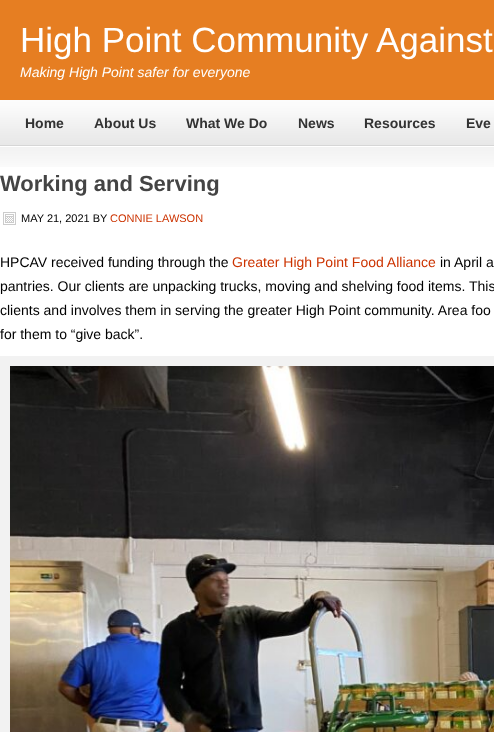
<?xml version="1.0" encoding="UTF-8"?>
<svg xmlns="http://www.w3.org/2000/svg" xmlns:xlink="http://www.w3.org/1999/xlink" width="494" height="732">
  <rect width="100%" height="100%" fill="#ffffff" />
  <image x="0" y="100" width="494" height="67" xlink:href="image1.png" />
  <rect width="494" height="100" fill="#e67e22" />
  <image x="3" y="212" width="13" height="13" xlink:href="image2.png" />
  <rect x="5" y="361" width="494" height="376" fill="none" stroke="#f2f2f2" stroke-width="10" />
  <image x="10" y="366" width="484" height="366" xlink:href="image3.png" />
  <text x="20" y="52" style="font-family: Liberation Sans; font-size: 35px; fill: #ffffff">High Point Community Against</text>
  <text x="20" y="77" style="font-family: Liberation Sans; font-size: 14px; font-style: italic; fill: #ffffff">Making High Point safer for everyone</text>
  <text x="25" y="128" style="font-family: Liberation Sans; font-size: 14px; font-weight: bold; fill: #333333">Home</text>
  <text x="94" y="128" style="font-family: Liberation Sans; font-size: 14px; font-weight: bold; fill: #333333">About Us</text>
  <text x="186" y="128" style="font-family: Liberation Sans; font-size: 14px; font-weight: bold; fill: #333333">What We Do</text>
  <text x="298" y="128" style="font-family: Liberation Sans; font-size: 14px; font-weight: bold; fill: #333333">News</text>
  <text x="364" y="128" style="font-family: Liberation Sans; font-size: 14px; font-weight: bold; fill: #333333">Resources</text>
  <text x="466" y="128" style="font-family: Liberation Sans; font-size: 14px; font-weight: bold; fill: #333333">Eve</text>
  <text x="0" y="191" style="font-family: Liberation Sans; font-size: 22px; font-weight: bold; fill: #444444">Working and Serving</text>
  <text x="21" y="222" style="font-family: Liberation Sans; font-size: 11px; fill: #000000">MAY 21, 2021 BY</text>
  <text x="110" y="222" style="font-family: Liberation Sans; font-size: 11px; fill: #cc3300">CONNIE LAWSON</text>
  <text x="0" y="267" style="font-family: Liberation Sans; font-size: 14px; fill: #000000">HPCAV received funding through the</text>
  <text x="232" y="267" style="font-family: Liberation Sans; font-size: 14px; fill: #cc3300">Greater High Point Food Alliance</text>
  <text x="440" y="267" style="font-family: Liberation Sans; font-size: 14px; fill: #000000">in April a</text>
  <text x="0" y="291" style="font-family: Liberation Sans; font-size: 14px; fill: #000000">pantries. Our clients are unpacking trucks, moving and shelving food items. This</text>
  <text x="0" y="315" style="font-family: Liberation Sans; font-size: 14px; fill: #000000">clients and involves them in serving the greater High Point community. Area foo</text>
  <text x="0" y="339" style="font-family: Liberation Sans; font-size: 14px; fill: #000000">for them to “give back”.</text>
</svg>
